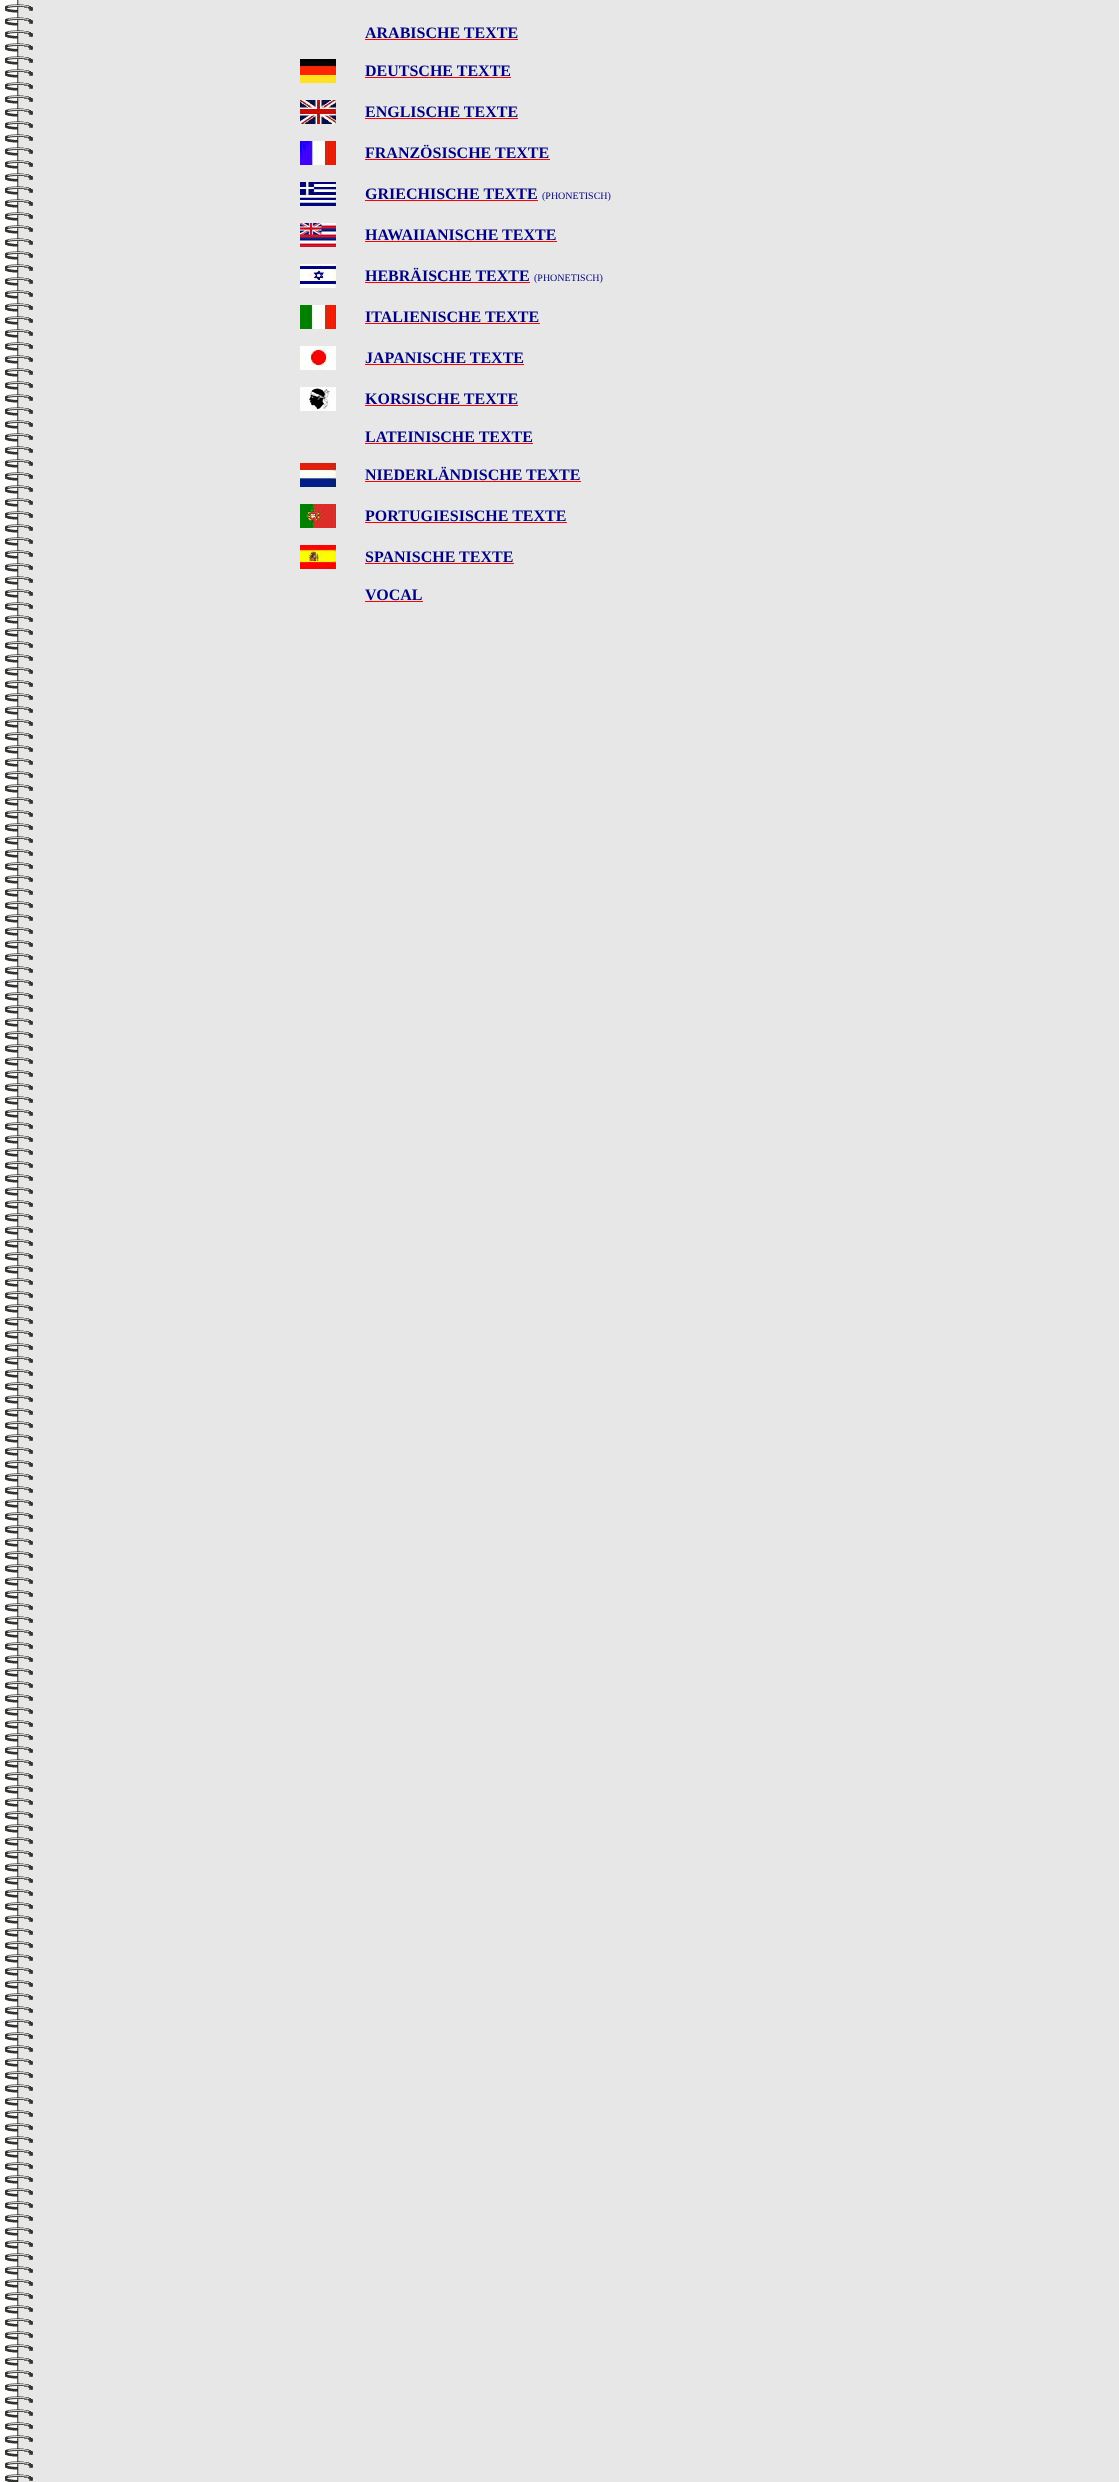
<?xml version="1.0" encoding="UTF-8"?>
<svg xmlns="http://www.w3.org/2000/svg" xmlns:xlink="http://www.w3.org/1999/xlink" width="1119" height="2482">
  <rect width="100%" height="100%" fill="#ffffff" />
  <image x="5" y="0" width="1114" height="2482" xlink:href="image1.png" />
  <rect x="365" y="39" width="153" height="1" fill="#ff0000" />
  <image x="300" y="59" width="36" height="24" xlink:href="image2.png" />
  <rect x="365" y="77" width="146" height="1" fill="#ff0000" />
  <image x="300" y="100" width="36" height="24" xlink:href="image3.png" />
  <rect x="365" y="118" width="153" height="1" fill="#ff0000" />
  <image x="300" y="141" width="36" height="24" xlink:href="image4.png" />
  <rect x="365" y="159" width="185" height="1" fill="#ff0000" />
  <image x="300" y="182" width="36" height="24" xlink:href="image5.png" />
  <rect x="365" y="200" width="173" height="1" fill="#ff0000" />
  <image x="300" y="223" width="36" height="24" xlink:href="image6.png" />
  <rect x="365" y="241" width="192" height="1" fill="#ff0000" />
  <image x="300" y="264" width="36" height="24" xlink:href="image7.png" />
  <rect x="365" y="282" width="165" height="1" fill="#ff0000" />
  <image x="300" y="305" width="36" height="24" xlink:href="image8.png" />
  <rect x="365" y="323" width="175" height="1" fill="#ff0000" />
  <image x="300" y="346" width="36" height="24" xlink:href="image9.png" />
  <rect x="365" y="364" width="159" height="1" fill="#ff0000" />
  <image x="300" y="387" width="36" height="24" xlink:href="image10.png" />
  <rect x="365" y="405" width="153" height="1" fill="#ff0000" />
  <rect x="365" y="443" width="168" height="1" fill="#ff0000" />
  <image x="300" y="463" width="36" height="24" xlink:href="image11.png" />
  <rect x="365" y="481" width="216" height="1" fill="#ff0000" />
  <image x="300" y="504" width="36" height="24" xlink:href="image12.png" />
  <rect x="365" y="522" width="202" height="1" fill="#ff0000" />
  <image x="300" y="545" width="36" height="24" xlink:href="image13.png" />
  <rect x="365" y="563" width="149" height="1" fill="#ff0000" />
  <rect x="365" y="601" width="58" height="1" fill="#ff0000" />
  <text x="365" y="38" style="font-family: Liberation Serif; font-size: 16px; font-weight: bold; fill: #000080">ARABISCHE TEXTE</text>
  <text x="365" y="76" style="font-family: Liberation Serif; font-size: 16px; font-weight: bold; fill: #000080">DEUTSCHE TEXTE</text>
  <text x="365" y="117" style="font-family: Liberation Serif; font-size: 16px; font-weight: bold; fill: #000080">ENGLISCHE TEXTE</text>
  <text x="365" y="158" style="font-family: Liberation Serif; font-size: 16px; font-weight: bold; fill: #000080">FRANZÖSISCHE TEXTE</text>
  <text x="365" y="199" style="font-family: Liberation Serif; font-size: 16px; font-weight: bold; fill: #000080">GRIECHISCHE TEXTE</text>
  <text x="542" y="199" style="font-family: Liberation Serif; font-size: 10px; fill: #000080">(PHONETISCH)</text>
  <text x="365" y="240" style="font-family: Liberation Serif; font-size: 16px; font-weight: bold; fill: #000080">HAWAIIANISCHE TEXTE</text>
  <text x="365" y="281" style="font-family: Liberation Serif; font-size: 16px; font-weight: bold; fill: #000080">HEBRÄISCHE TEXTE</text>
  <text x="534" y="281" style="font-family: Liberation Serif; font-size: 10px; fill: #000080">(PHONETISCH)</text>
  <text x="365" y="322" style="font-family: Liberation Serif; font-size: 16px; font-weight: bold; fill: #000080">ITALIENISCHE TEXTE</text>
  <text x="365" y="363" style="font-family: Liberation Serif; font-size: 16px; font-weight: bold; fill: #000080">JAPANISCHE TEXTE</text>
  <text x="365" y="404" style="font-family: Liberation Serif; font-size: 16px; font-weight: bold; fill: #000080">KORSISCHE TEXTE</text>
  <text x="365" y="442" style="font-family: Liberation Serif; font-size: 16px; font-weight: bold; fill: #000080">LATEINISCHE TEXTE</text>
  <text x="365" y="480" style="font-family: Liberation Serif; font-size: 16px; font-weight: bold; fill: #000080">NIEDERLÄNDISCHE TEXTE</text>
  <text x="365" y="521" style="font-family: Liberation Serif; font-size: 16px; font-weight: bold; fill: #000080">PORTUGIESISCHE TEXTE</text>
  <text x="365" y="562" style="font-family: Liberation Serif; font-size: 16px; font-weight: bold; fill: #000080">SPANISCHE TEXTE</text>
  <text x="365" y="600" style="font-family: Liberation Serif; font-size: 16px; font-weight: bold; fill: #000080">VOCAL</text>
</svg>
